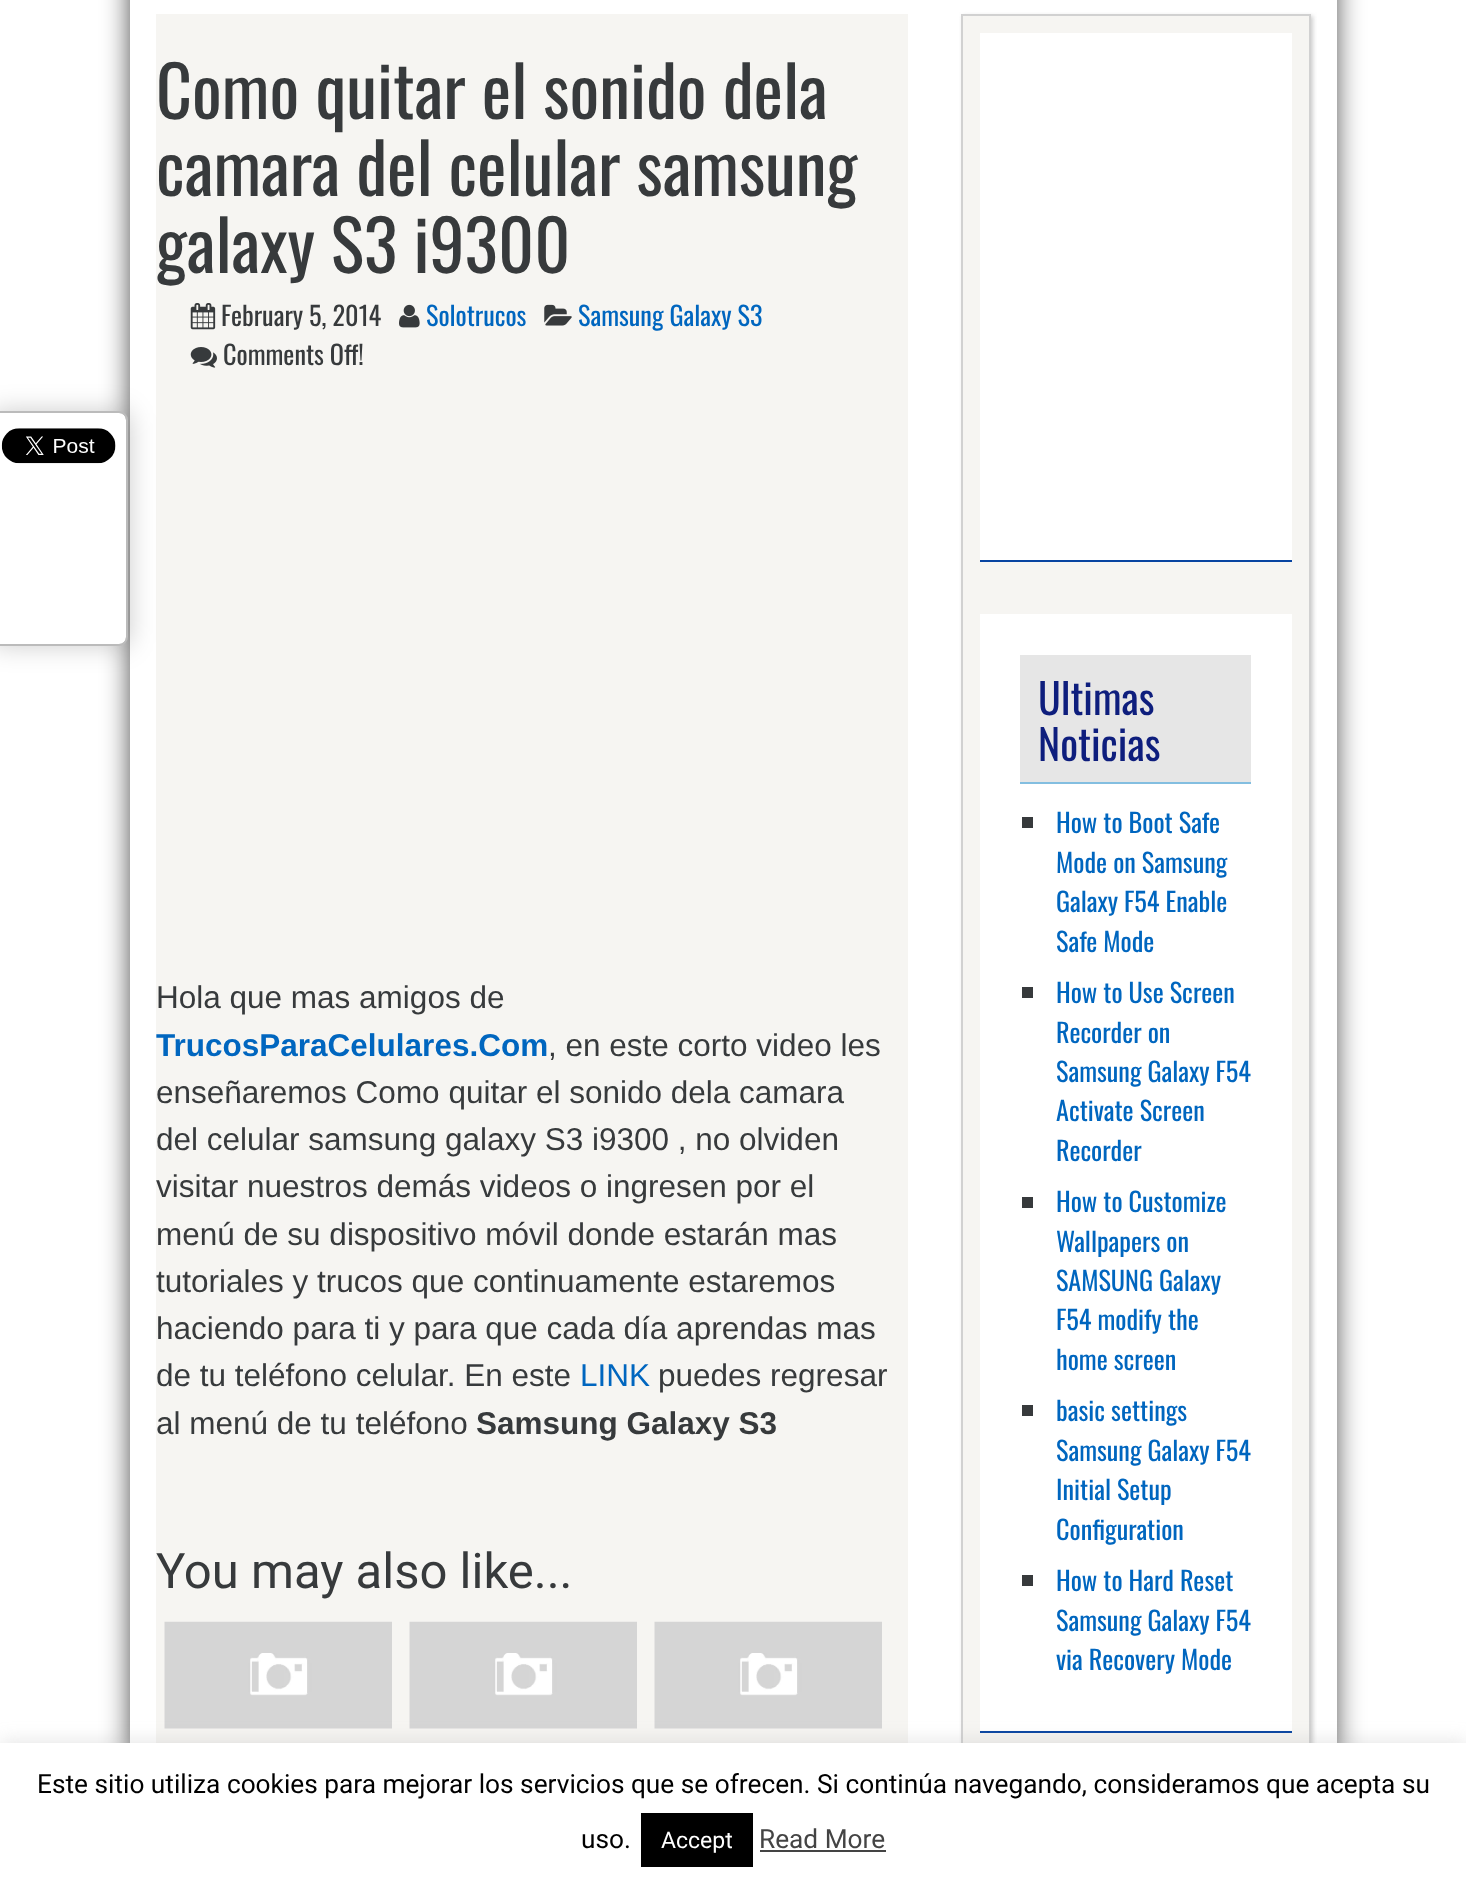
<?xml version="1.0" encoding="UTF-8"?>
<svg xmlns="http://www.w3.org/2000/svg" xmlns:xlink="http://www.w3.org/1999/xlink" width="1466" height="1888">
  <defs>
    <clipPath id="clip1"><path d="M 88 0 h 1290 v 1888 h -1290 z m 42 -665 h 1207 v 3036 h -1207 z" clip-rule="evenodd" /></clipPath>
  </defs>
  <rect width="100%" height="100%" fill="#ffffff" />
  <g clip-path="url(#clip1)">
    <rect x="131" y="-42" width="1204" height="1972" fill="#000000" fill-opacity="0.75" filter="blur(14px)" />
  </g>
  <rect x="156" y="14" width="752" height="1729" fill="#f6f5f2" />
  <rect x="-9" y="411" width="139" height="235" rx="9" fill="#000000" fill-opacity="0.2" filter="blur(13px)" />
  <rect x="-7" y="413" width="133" height="231" rx="7" fill="#ffffff" />
  <rect x="-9" y="412" width="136" height="233" rx="8" fill="none" stroke="#bbbbbb" stroke-width="2" />
  <image x="1" y="428" width="115" height="36" xlink:href="image1.png" />
  <image x="190" y="303" width="26" height="27" xlink:href="image2.png" />
  <image x="399" y="304" width="21" height="24" xlink:href="image3.png" />
  <image x="544" y="304" width="28" height="22" xlink:href="image4.png" />
  <image x="190" y="347" width="27" height="21" xlink:href="image5.png" />
  <image x="164" y="1621" width="228" height="108" xlink:href="image6.png" />
  <image x="409" y="1621" width="228" height="108" xlink:href="image6.png" />
  <image x="654" y="1621" width="228" height="108" xlink:href="image6.png" />
  <rect x="963" y="16" width="350" height="1790" fill="#cecece" filter="blur(2px)" />
  <rect x="963" y="16" width="346" height="1727" fill="#f6f5f2" />
  <rect x="962" y="15" width="348" height="1788" fill="none" stroke="#d1d1d1" stroke-width="2" />
  <rect x="980" y="33" width="312" height="527" fill="#ffffff" />
  <rect x="980" y="560" width="312" height="2" fill="#0744a1" />
  <rect x="980" y="614" width="312" height="1117" fill="#ffffff" />
  <rect x="980" y="1731" width="312" height="2" fill="#0744a1" />
  <rect x="1020" y="655" width="231" height="127" fill="#e6e6e6" />
  <rect x="1020" y="782" width="231" height="2" fill="#83bee0" />
  <rect x="1022" y="817" width="11" height="11" fill="#373a3c" />
  <rect x="1022" y="987" width="11" height="11" fill="#373a3c" />
  <rect x="1022" y="1197" width="11" height="11" fill="#373a3c" />
  <rect x="1022" y="1405" width="11" height="11" fill="#373a3c" />
  <rect x="1022" y="1575" width="11" height="11" fill="#373a3c" />
  <rect y="1741" width="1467" height="146" fill="#acabab" fill-opacity="0.3" filter="blur(9px)" />
  <rect y="1743" width="1466" height="145" fill="#ffffff" />
  <rect x="641" y="1813" width="112" height="54" fill="#000000" />
  <rect x="760" y="1850" width="126" height="2" fill="#444444" />
  <text x="156" y="119" style="font-family: Oswald; font-size: 70px; fill: #373a3c">Como quitar el sonido dela</text>
  <text x="156" y="196" style="font-family: Oswald; font-size: 70px; fill: #373a3c">camara del celular samsung</text>
  <text x="156" y="273" style="font-family: Oswald; font-size: 70px; fill: #373a3c">galaxy S3 i9300</text>
  <text x="221" y="326" style="font-family: Oswald; font-size: 26.25px; fill: #373a3c">February 5, 2014</text>
  <text x="426" y="326" style="font-family: Oswald; font-size: 26.25px; fill: #0066bf">Solotrucos</text>
  <text x="578" y="326" style="font-family: Oswald; font-size: 26.25px; fill: #0066bf">Samsung Galaxy S3</text>
  <text x="223" y="365" style="font-family: Oswald; font-size: 26.25px; fill: #373a3c">Comments Off!</text>
  <text x="156" y="1008" style="font-family: Liberation Sans; font-size: 31.5px; fill: #373a3c">Hola que mas amigos de</text>
  <text x="156" y="1056" style="font-family: Liberation Sans; font-size: 31.5px; font-weight: bold; fill: #0066bf">TrucosParaCelulares.Com</text>
  <text x="548" y="1056" style="font-family: Liberation Sans; font-size: 31.5px; fill: #373a3c">, en este corto video les</text>
  <text x="156" y="1103" style="font-family: Liberation Sans; font-size: 31.5px; fill: #373a3c">enseñaremos Como quitar el sonido dela camara</text>
  <text x="156" y="1150" style="font-family: Liberation Sans; font-size: 31.5px; fill: #373a3c">del celular samsung galaxy S3 i9300 , no olviden</text>
  <text x="156" y="1197" style="font-family: Liberation Sans; font-size: 31.5px; fill: #373a3c">visitar nuestros demás videos o ingresen por el</text>
  <text x="156" y="1245" style="font-family: Liberation Sans; font-size: 31.5px; fill: #373a3c">menú de su dispositivo móvil donde estarán mas</text>
  <text x="156" y="1292" style="font-family: Liberation Sans; font-size: 31.5px; fill: #373a3c">tutoriales y trucos que continuamente estaremos</text>
  <text x="156" y="1339" style="font-family: Liberation Sans; font-size: 31.5px; fill: #373a3c">haciendo para ti y para que cada día aprendas mas</text>
  <text x="156" y="1386" style="font-family: Liberation Sans; font-size: 31.5px; fill: #373a3c">de tu teléfono celular. En este</text>
  <text x="580" y="1386" style="font-family: Liberation Sans; font-size: 31.5px; fill: #0066bf">LINK</text>
  <text x="658" y="1386" style="font-family: Liberation Sans; font-size: 31.5px; fill: #373a3c">puedes regresar</text>
  <text x="156" y="1434" style="font-family: Liberation Sans; font-size: 31.5px; fill: #373a3c">al menú de tu teléfono</text>
  <text x="476" y="1434" style="font-family: Liberation Sans; font-size: 31.5px; font-weight: bold; fill: #373a3c">Samsung Galaxy S3</text>
  <text x="156" y="1588" style="font-family: Roboto; font-size: 49px; fill: #373a3c">You may also like...</text>
  <text x="1038" y="715" style="font-family: Oswald; font-size: 42px; fill: #0e1e7d">Ultimas</text>
  <text x="1038" y="761" style="font-family: Oswald; font-size: 42px; fill: #0e1e7d">Noticias</text>
  <text x="1056" y="833" style="font-family: Oswald; font-size: 26.25px; fill: #0066bf">How to Boot Safe</text>
  <text x="1056" y="873" style="font-family: Oswald; font-size: 26.25px; fill: #0066bf">Mode on Samsung</text>
  <text x="1056" y="912" style="font-family: Oswald; font-size: 26.25px; fill: #0066bf">Galaxy F54 Enable</text>
  <text x="1056" y="952" style="font-family: Oswald; font-size: 26.25px; fill: #0066bf">Safe Mode</text>
  <text x="1056" y="1003" style="font-family: Oswald; font-size: 26.25px; fill: #0066bf">How to Use Screen</text>
  <text x="1056" y="1043" style="font-family: Oswald; font-size: 26.25px; fill: #0066bf">Recorder on</text>
  <text x="1056" y="1082" style="font-family: Oswald; font-size: 26.25px; fill: #0066bf">Samsung Galaxy F54</text>
  <text x="1056" y="1121" style="font-family: Oswald; font-size: 26.25px; fill: #0066bf">Activate Screen</text>
  <text x="1056" y="1161" style="font-family: Oswald; font-size: 26.25px; fill: #0066bf">Recorder</text>
  <text x="1056" y="1212" style="font-family: Oswald; font-size: 26.25px; fill: #0066bf">How to Customize</text>
  <text x="1056" y="1252" style="font-family: Oswald; font-size: 26.25px; fill: #0066bf">Wallpapers on</text>
  <text x="1056" y="1291" style="font-family: Oswald; font-size: 26.25px; fill: #0066bf">SAMSUNG Galaxy</text>
  <text x="1056" y="1330" style="font-family: Oswald; font-size: 26.25px; fill: #0066bf">F54 modify the</text>
  <text x="1056" y="1370" style="font-family: Oswald; font-size: 26.25px; fill: #0066bf">home screen</text>
  <text x="1056" y="1421" style="font-family: Oswald; font-size: 26.25px; fill: #0066bf">basic settings</text>
  <text x="1056" y="1461" style="font-family: Oswald; font-size: 26.25px; fill: #0066bf">Samsung Galaxy F54</text>
  <text x="1056" y="1500" style="font-family: Oswald; font-size: 26.25px; fill: #0066bf">Initial Setup</text>
  <text x="1056" y="1540" style="font-family: Oswald; font-size: 26.25px; fill: #0066bf">Configuration</text>
  <text x="1056" y="1591" style="font-family: Oswald; font-size: 26.25px; fill: #0066bf">How to Hard Reset</text>
  <text x="1056" y="1631" style="font-family: Oswald; font-size: 26.25px; fill: #0066bf">Samsung Galaxy F54</text>
  <text x="1056" y="1670" style="font-family: Oswald; font-size: 26.25px; fill: #0066bf">via Recovery Mode</text>
  <text x="37" y="1793" style="font-family: Roboto; font-size: 26.25px; fill: #000000">Este sitio utiliza cookies para mejorar los servicios que se ofrecen. Si continúa navegando, consideramos que acepta su</text>
  <text x="581" y="1848" style="font-family: Roboto; font-size: 26.25px; fill: #000000">uso.</text>
  <text x="661" y="1848" style="font-family: Roboto; font-size: 23px; fill: #ffffff">Accept</text>
  <text x="759" y="1848" style="font-family: Roboto; font-size: 26.25px; fill: #444444">Read More</text>
</svg>
